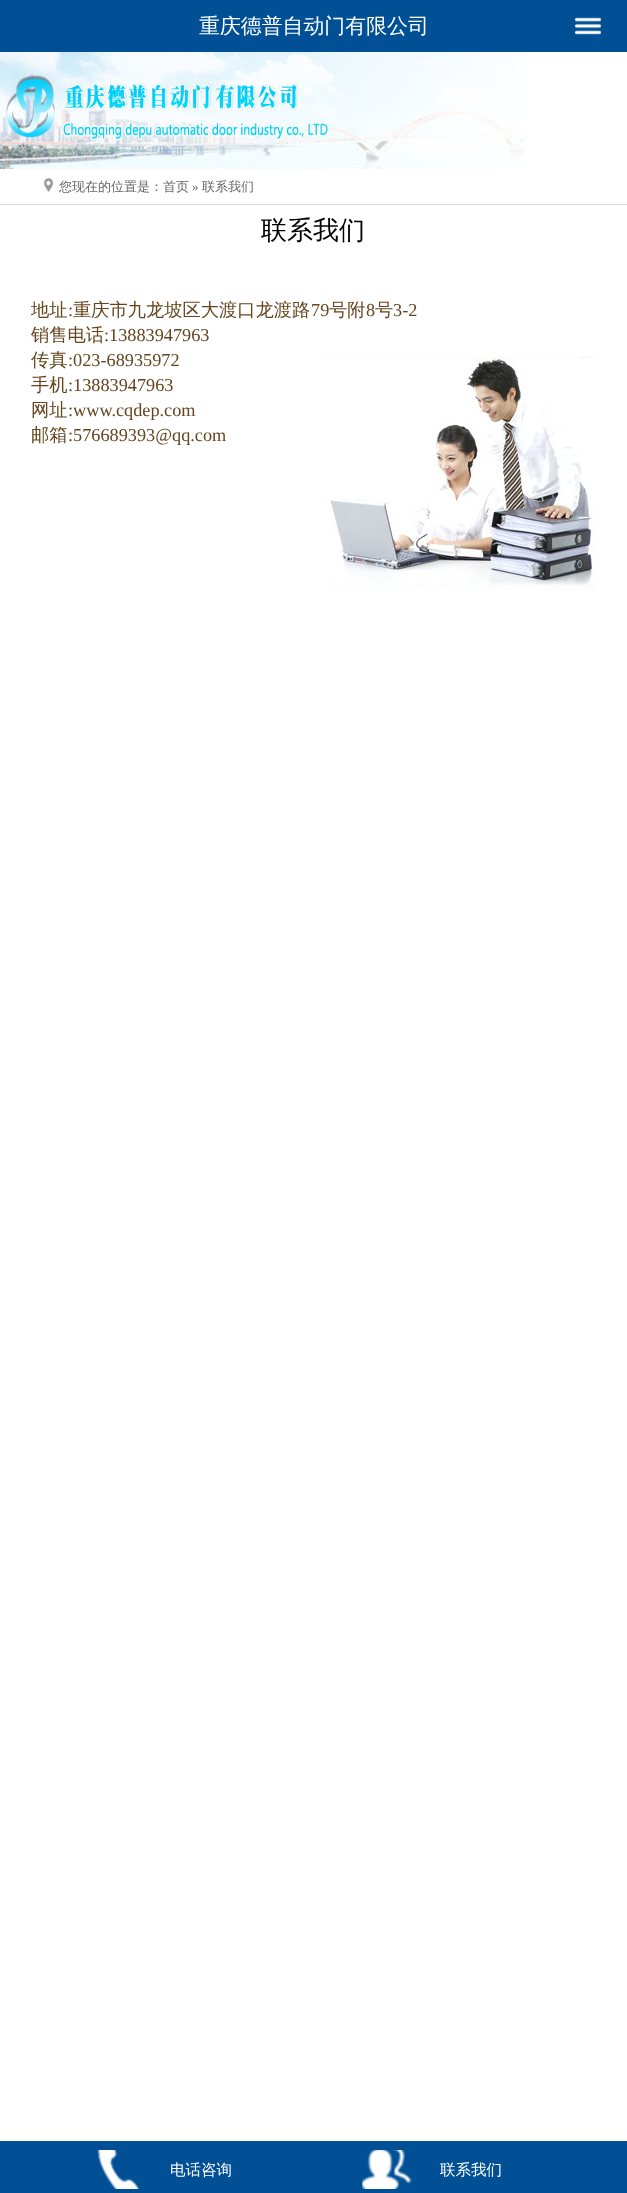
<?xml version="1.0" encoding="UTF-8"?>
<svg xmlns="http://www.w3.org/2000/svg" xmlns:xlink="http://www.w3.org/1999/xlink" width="627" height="2193">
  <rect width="100%" height="100%" fill="#ffffff" />
  <rect width="627" height="52" fill="#015095" />
  <image x="575" y="17" width="26" height="18" xlink:href="image1.png" />
  <image x="0" y="52" width="529" height="117" xlink:href="image2.png" />
  <rect y="204" width="627" height="1" fill="#d9d9d9" />
  <image x="44" y="178" width="9" height="14" xlink:href="image3.png" />
  <image x="326" y="355" width="270" height="236" xlink:href="image4.png" />
  <rect y="2141" width="627" height="52" fill="#015095" />
  <image x="97" y="2150" width="43" height="39" xlink:href="image5.png" />
  <image x="362" y="2150" width="50" height="39" xlink:href="image6.png" />
  <text x="199" y="33" style="font-family: WenQuanYi Zen Hei; font-size: 20.9px; font-weight: 500; fill: #ffffff">重庆德普自动门有限公司</text>
  <text x="59" y="191" style="font-family: WenQuanYi Zen Hei; font-size: 13px; font-weight: 500; fill: #666666">您现在的位置是：首页</text>
  <text x="192" y="191" style="font-family: Liberation Serif; font-size: 13px; fill: #666666">»</text>
  <text x="202" y="191" style="font-family: WenQuanYi Zen Hei; font-size: 13px; font-weight: 500; fill: #666666">联系我们</text>
  <text x="261" y="239" style="font-family: WenQuanYi Zen Hei; font-size: 26px; font-weight: 500; fill: #000000">联系我们</text>
  <text x="31" y="316" style="font-family: WenQuanYi Zen Hei; font-size: 18.25px; font-weight: 500; fill: #64451d">地址</text>
  <text x="68" y="316" style="font-family: Liberation Serif; font-size: 18.25px; fill: #64451d">:</text>
  <text x="73" y="316" style="font-family: WenQuanYi Zen Hei; font-size: 18.25px; font-weight: 500; fill: #64451d">重庆市九龙坡区大渡口龙渡路</text>
  <text x="311" y="316" style="font-family: Liberation Serif; font-size: 18.25px; fill: #64451d">79</text>
  <text x="329" y="316" style="font-family: WenQuanYi Zen Hei; font-size: 18.25px; font-weight: 500; fill: #64451d">号附</text>
  <text x="366" y="316" style="font-family: Liberation Serif; font-size: 18.25px; fill: #64451d">8</text>
  <text x="375" y="316" style="font-family: WenQuanYi Zen Hei; font-size: 18.25px; font-weight: 500; fill: #64451d">号</text>
  <text x="393" y="316" style="font-family: Liberation Serif; font-size: 18.25px; fill: #64451d">3-2</text>
  <text x="31" y="341" style="font-family: WenQuanYi Zen Hei; font-size: 18.25px; font-weight: 500; fill: #64451d">销售电话</text>
  <text x="104" y="341" style="font-family: Liberation Serif; font-size: 18.25px; fill: #64451d">:13883947963</text>
  <text x="31" y="366" style="font-family: WenQuanYi Zen Hei; font-size: 18.25px; font-weight: 500; fill: #64451d">传真</text>
  <text x="68" y="366" style="font-family: Liberation Serif; font-size: 18.25px; fill: #64451d">:023-68935972</text>
  <text x="31" y="391" style="font-family: WenQuanYi Zen Hei; font-size: 18.25px; font-weight: 500; fill: #64451d">手机</text>
  <text x="68" y="391" style="font-family: Liberation Serif; font-size: 18.25px; fill: #64451d">:13883947963</text>
  <text x="31" y="416" style="font-family: WenQuanYi Zen Hei; font-size: 18.25px; font-weight: 500; fill: #64451d">网址</text>
  <text x="68" y="416" style="font-family: Liberation Serif; font-size: 18.25px; fill: #64451d">:www.cqdep.com</text>
  <text x="31" y="441" style="font-family: WenQuanYi Zen Hei; font-size: 18.25px; font-weight: 500; fill: #64451d">邮箱</text>
  <text x="68" y="441" style="font-family: Liberation Serif; font-size: 18.25px; fill: #64451d">:576689393@qq.com</text>
  <text x="170" y="2175" style="font-family: WenQuanYi Zen Hei; font-size: 15.5px; font-weight: 500; fill: #ffffff">电话咨询</text>
  <text x="440" y="2175" style="font-family: WenQuanYi Zen Hei; font-size: 15.5px; font-weight: 500; fill: #ffffff">联系我们</text>
</svg>
